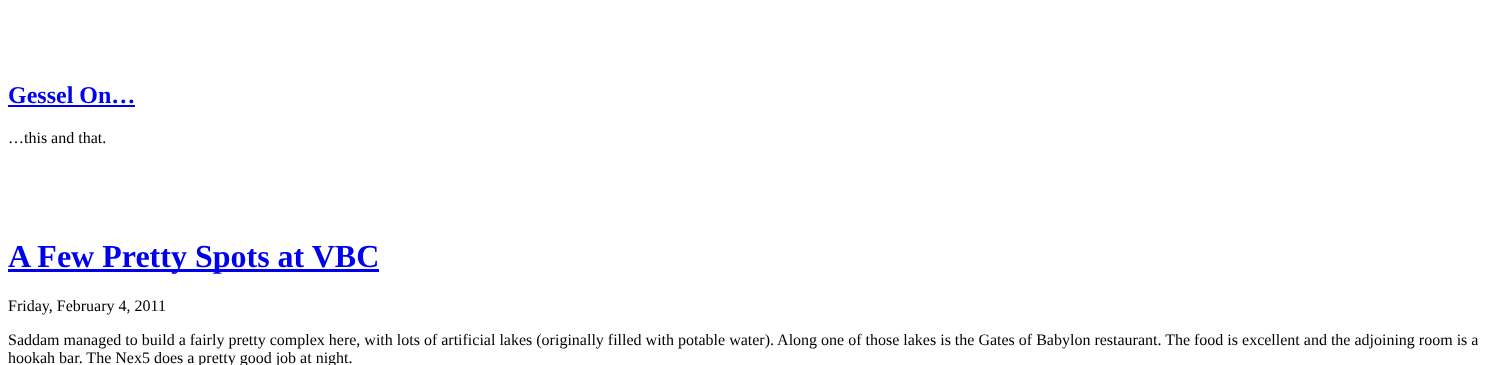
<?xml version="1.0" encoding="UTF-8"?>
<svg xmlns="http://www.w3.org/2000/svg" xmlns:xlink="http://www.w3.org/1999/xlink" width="1503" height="365">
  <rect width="100%" height="100%" fill="#ffffff" />
  <rect x="8" y="105" width="127" height="2" fill="#0000ee" />
  <rect x="8" y="269" width="371" height="3" fill="#0000ee" />
  <text x="8" y="103" style="font-family: Liberation Serif; font-size: 24px; font-weight: bold; fill: #0000ee">Gessel On…</text>
  <text x="8" y="143" style="font-family: Liberation Serif; font-size: 16px; fill: #000000">…this and that.</text>
  <text x="8" y="267" style="font-family: Liberation Serif; font-size: 32px; font-weight: bold; fill: #0000ee">A Few Pretty Spots at VBC</text>
  <text x="8" y="311" style="font-family: Liberation Serif; font-size: 16px; fill: #000000">Friday, February 4, 2011</text>
  <text x="8" y="345" style="font-family: Liberation Serif; font-size: 16px; fill: #000000">Saddam managed to build a fairly pretty complex here, with lots of artificial lakes (originally filled with potable water). Along one of those lakes is the Gates of Babylon restaurant. The food is excellent and the adjoining room is a</text>
  <text x="8" y="363" style="font-family: Liberation Serif; font-size: 16px; fill: #000000">hookah bar. The Nex5 does a pretty good job at night.</text>
</svg>
